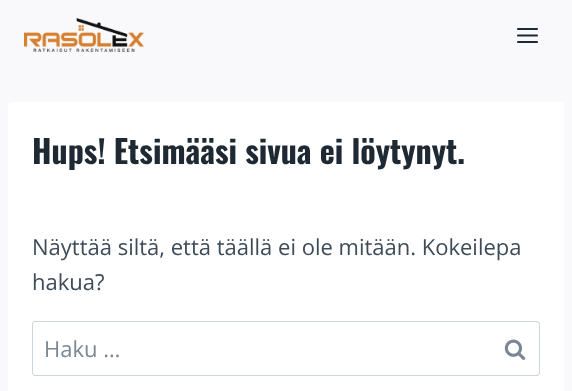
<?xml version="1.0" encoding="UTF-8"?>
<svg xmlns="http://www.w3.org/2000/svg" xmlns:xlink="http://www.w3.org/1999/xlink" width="572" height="391">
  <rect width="100%" height="100%" fill="#f9f9fb" />
  <image x="24" y="18" width="120" height="34" xlink:href="image1.png" />
  <path d="M 518 35.5 h 19 m -19 -6.5 h 19 m -19 13 h 19" fill="none" stroke="#1f2933" stroke-width="2.1" stroke-linecap="round" stroke-linejoin="round" />
  <rect x="8" y="102" width="556" height="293" rx="4" fill="#ffffff" />
  <rect x="32.5" y="321.5" width="507" height="54" rx="2.5" fill="none" stroke="#cbd5e0" />
  <image x="504" y="339" width="22" height="21" xlink:href="image2.png" />
  <text x="32" y="164" style="font-family: Oswald; font-size: 32px; font-weight: bold; fill: #1f2933">Hups! Etsimääsi sivua ei löytynyt.</text>
  <text x="32" y="255" style="font-family: Open Sans; font-size: 22px; fill: #3e4c59">Näyttää siltä, että täällä ei ole mitään. Kokeilepa</text>
  <text x="32" y="290" style="font-family: Open Sans; font-size: 22px; fill: #3e4c59">hakua?</text>
  <text x="44" y="357" style="font-family: Open Sans; font-size: 22px; fill: #7b8794">Haku …</text>
</svg>
